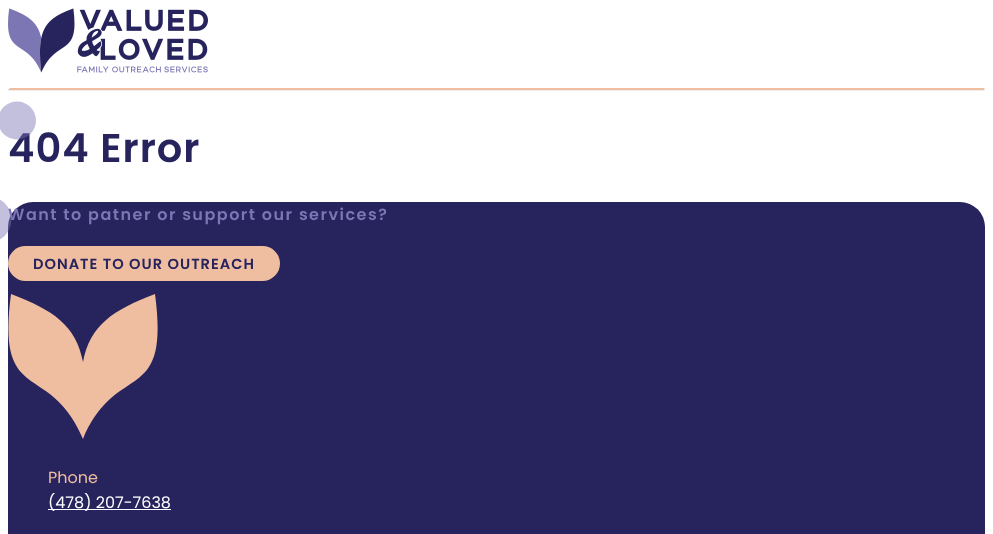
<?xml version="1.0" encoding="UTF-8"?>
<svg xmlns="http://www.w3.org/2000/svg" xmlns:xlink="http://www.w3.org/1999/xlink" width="993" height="534">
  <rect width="100%" height="100%" fill="#ffffff" />
  <image x="8" y="8" width="200" height="65" xlink:href="image1.png" />
  <path d="M 10 88 h 974 l 1 1 l -1 1 h -975 v -1 z" fill="#efbea0" />
  <path d="M 985 90 l -0.5 0.5 l -1 -1 h 0.5 l 0.5 -1 c 0.5 0.5 0.5 1 0.5 1.5 z" fill="#eeeeee" />
  <path d="M 10 91 h 975 l -1 -1 h -974 h -1 z" fill="#eeeeee" />
  <path d="M 8.5 89 l 0.5 0.5 h 0.5 l -1 1 z" fill="#9f9f9f" />
  <rect x="8" y="202" width="977" height="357" rx="25" fill="#27235d" />
  <rect x="8" y="246" width="272" height="35" rx="17.5" fill="#efbea0" />
  <path d="M 155 294 c -42 16 -65 31 -72 68 c -7 -37 -30 -52 -72 -68 c -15 114 38 65 72 145 v 1 v -1 c 34 -80 87 -31 72 -145" fill="#efbea0" />
  <rect x="48" y="509" width="123" height="1" fill="#ffffff" />
  <text x="8" y="162" style="font-family: Poppins; font-size: 40px; font-weight: 600; letter-spacing: 1px; fill: #27235d">404 Error</text>
  <circle cx="17" cy="120.5" r="19" fill="#7c76b4" fill-opacity="0.46" />
  <text x="8" y="220" style="font-family: Poppins; font-size: 16px; font-weight: 600; letter-spacing: 1.5px; fill: #7c76b5">Want to patner or support our services?</text>
  <circle cx="-11.5" cy="219.5" r="23" fill="#7c76b4" fill-opacity="0.46" />
  <text x="33" y="269" style="font-family: Poppins; font-size: 14.6px; font-weight: 600; letter-spacing: 1px; fill: #27235d">DONATE TO OUR OUTREACH</text>
  <text x="48" y="483" style="font-family: Poppins; font-size: 16px; fill: #efbea0">Phone</text>
  <text x="48" y="508" style="font-family: Poppins; font-size: 16px; fill: #ffffff">(478) 207-7638</text>
</svg>
